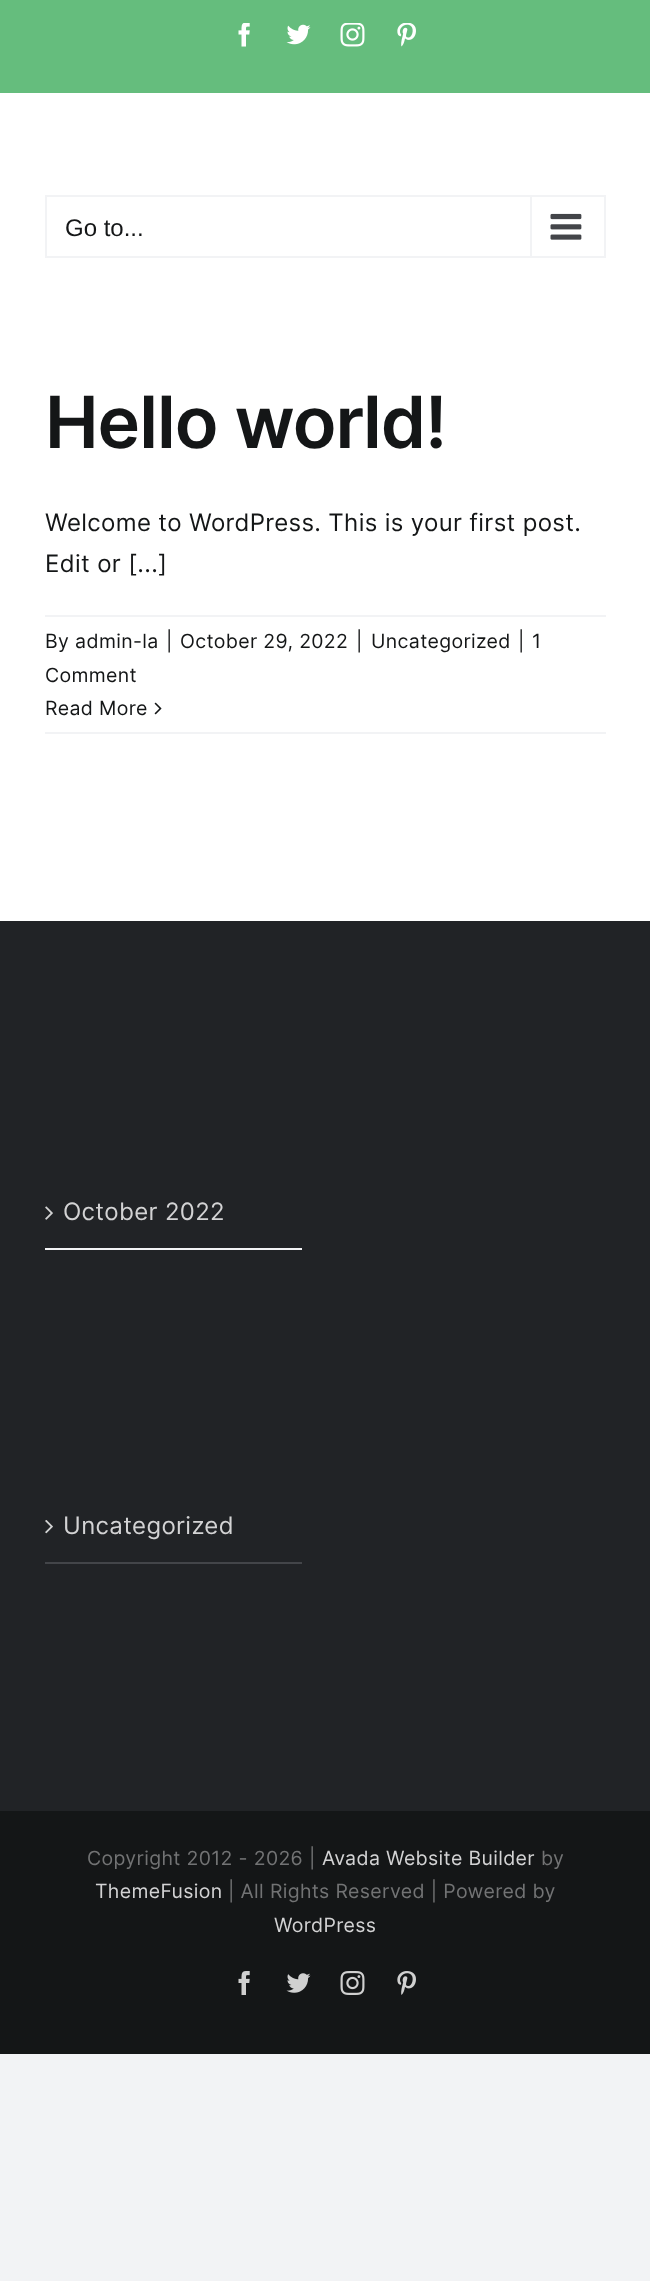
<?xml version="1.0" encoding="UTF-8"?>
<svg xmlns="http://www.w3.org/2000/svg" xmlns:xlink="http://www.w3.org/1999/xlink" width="650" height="2281">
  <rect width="100%" height="100%" fill="#f2f3f5" />
  <rect y="93" width="650" height="828" fill="#ffffff" />
  <rect width="650" height="93" fill="#65bd7d" />
  <image x="238" y="23" width="12" height="24" xlink:href="image1.png" />
  <image x="286" y="24" width="25" height="21" xlink:href="image2.png" />
  <image x="340" y="23" width="25" height="24" xlink:href="image3.png" />
  <image x="397" y="23" width="19" height="24" xlink:href="image4.png" />
  <rect x="46" y="196" width="559" height="61" fill="none" stroke="#f2f3f5" stroke-width="2" />
  <rect x="530" y="197" width="2" height="60" fill="#f2f3f5" />
  <image x="550" y="213" width="32" height="27" xlink:href="image5.png" />
  <rect x="45" y="615" width="561" height="2" fill="#f2f3f5" />
  <rect x="45" y="732" width="561" height="2" fill="#f2f3f5" />
  <image x="154" y="702" width="8" height="13" xlink:href="image6.png" />
  <rect y="921" width="650" height="890" fill="#212326" />
  <rect x="45" y="1248" width="257" height="2" fill="#f2f3f5" />
  <image x="45" y="1206" width="8" height="14" xlink:href="image7.png" />
  <rect x="45" y="1562" width="257" height="2" fill="#434549" />
  <image x="45" y="1520" width="8" height="14" xlink:href="image8.png" />
  <rect y="1811" width="650" height="243" fill="#141617" />
  <image x="238" y="1971" width="12" height="24" xlink:href="image9.png" />
  <image x="286" y="1973" width="25" height="20" xlink:href="image10.png" />
  <image x="340" y="1971" width="25" height="24" xlink:href="image11.png" />
  <image x="397" y="1971" width="19" height="24" xlink:href="image12.png" />
  <text x="65" y="236" style="font-family: Liberation Sans; font-size: 24px; fill: #141617">Go to...</text>
  <text x="45" y="448" style="font-family: Inter; font-size: 72px; font-weight: 600; letter-spacing: -1px; fill: #141617">Hello world!</text>
  <text x="45" y="531" style="font-family: Inter; font-size: 24px; letter-spacing: 0.35px; fill: #141617">Welcome to WordPress. This is your first post.</text>
  <text x="45" y="572" style="font-family: Inter; font-size: 24px; letter-spacing: 0.35px; fill: #141617">Edit or [...]</text>
  <text x="45" y="648" style="font-family: Inter; font-size: 19.5px; letter-spacing: 0.35px; fill: #141617">By admin-la</text>
  <text x="166" y="648" style="font-family: Inter; font-size: 19.5px; letter-spacing: 0.35px; fill: #141617">|</text>
  <text x="180" y="648" style="font-family: Inter; font-size: 19.5px; letter-spacing: 0.35px; fill: #141617">October 29, 2022</text>
  <text x="356" y="648" style="font-family: Inter; font-size: 19.5px; letter-spacing: 0.35px; fill: #141617">|</text>
  <text x="371" y="648" style="font-family: Inter; font-size: 19.5px; letter-spacing: 0.35px; fill: #141617">Uncategorized</text>
  <text x="518" y="648" style="font-family: Inter; font-size: 19.5px; letter-spacing: 0.35px; fill: #141617">|</text>
  <text x="532" y="648" style="font-family: Inter; font-size: 19.5px; letter-spacing: 0.35px; fill: #141617">1</text>
  <text x="45" y="682" style="font-family: Inter; font-size: 19.5px; letter-spacing: 0.35px; fill: #141617">Comment</text>
  <text x="45" y="715" style="font-family: Inter; font-size: 19.5px; letter-spacing: 0.35px; fill: #141617">Read More</text>
  <text x="63" y="1220" style="font-family: Inter; font-size: 24px; letter-spacing: 0.35px; fill: #d3d3d4">October 2022</text>
  <text x="63" y="1534" style="font-family: Inter; font-size: 24px; letter-spacing: 0.35px; fill: #d3d3d4">Uncategorized</text>
  <text x="87" y="1865" style="font-family: Inter; font-size: 19.5px; letter-spacing: 0.35px; fill: #727374">Copyright 2012 - 2026 |</text>
  <text x="322" y="1865" style="font-family: Inter; font-size: 19.5px; letter-spacing: 0.35px; fill: #d3d3d4">Avada Website Builder</text>
  <text x="541" y="1865" style="font-family: Inter; font-size: 19.5px; letter-spacing: 0.35px; fill: #727374">by</text>
  <text x="95" y="1898" style="font-family: Inter; font-size: 19.5px; letter-spacing: 0.35px; fill: #d3d3d4">ThemeFusion</text>
  <text x="228" y="1898" style="font-family: Inter; font-size: 19.5px; letter-spacing: 0.35px; fill: #727374">| All Rights Reserved | Powered by</text>
  <text x="274" y="1932" style="font-family: Inter; font-size: 19.5px; letter-spacing: 0.35px; fill: #d3d3d4">WordPress</text>
</svg>
